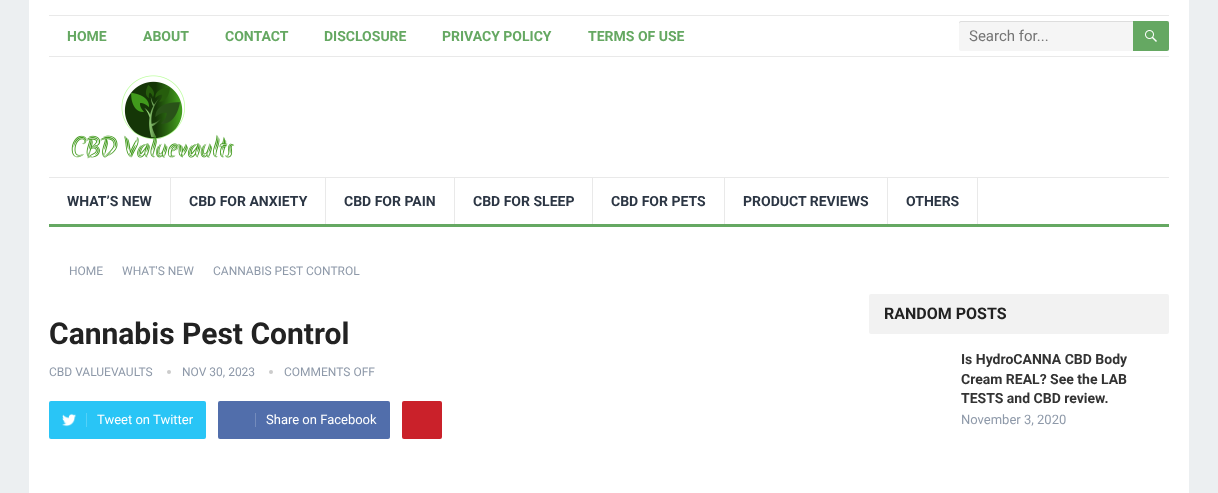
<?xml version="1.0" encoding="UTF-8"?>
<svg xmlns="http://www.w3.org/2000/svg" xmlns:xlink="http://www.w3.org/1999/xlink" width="1218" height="493">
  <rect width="100%" height="100%" fill="#eceff1" />
  <rect x="29" width="1160" height="493" fill="#ffffff" />
  <rect x="49" y="15" width="1120" height="1" fill="#e9e9e9" />
  <rect x="49" y="56" width="1120" height="1" fill="#e9e9e9" />
  <path d="M 961 21 h 208 v 30 h -208 c -1 0 -2 -1 -2 -2 v -26 c 0 -1 1 -2 2 -2 z" fill="#f5f5f5" />
  <path d="M 961 22 h 208 v -1 h -208 c -2 0 -2 2 -2 3 c 0 -1 1 -2 2 -2 z" fill="#dddddd" />
  <path d="M 1133 21 h 34 c 1 0 2 1 2 2 v 26 c 0 1 -1 2 -2 2 h -34 z" fill="#65a862" />
  <image x="1145" y="30" width="12" height="12" xlink:href="image1.png" />
  <image x="71" y="75" width="164" height="84" xlink:href="image2.png" />
  <rect x="49" y="177" width="1120" height="1" fill="#e9e9e9" />
  <rect x="49" y="224" width="1120" height="3" fill="#65a862" />
  <rect x="170" y="178" width="1" height="46" fill="#e9e9e9" />
  <rect x="325" y="178" width="1" height="46" fill="#e9e9e9" />
  <rect x="454" y="178" width="1" height="46" fill="#e9e9e9" />
  <rect x="592" y="178" width="1" height="46" fill="#e9e9e9" />
  <rect x="724" y="178" width="1" height="46" fill="#e9e9e9" />
  <rect x="887" y="178" width="1" height="46" fill="#e9e9e9" />
  <rect x="977" y="178" width="1" height="46" fill="#e9e9e9" />
  <circle cx="169" cy="372" r="2" fill="#cccccc" />
  <circle cx="271" cy="372" r="2" fill="#cccccc" />
  <rect x="49" y="401" width="157" height="38" rx="2" fill="#29c5f6" />
  <image x="62" y="413" width="14" height="14" xlink:href="image3.png" />
  <rect x="86" y="413" width="1" height="14" fill="#54d1f8" />
  <rect x="218" y="401" width="172" height="38" rx="2" fill="#516eab" />
  <rect x="255" y="413" width="1" height="14" fill="#748bbc" />
  <rect x="402" y="401" width="40" height="38" rx="2" fill="#ca212a" />
  <rect x="869" y="294" width="300" height="40" rx="2" fill="#f2f2f2" />
  <text x="67" y="41" style="font-family: Roboto; font-size: 14px; font-weight: bold; fill: #65a862">HOME</text>
  <text x="143" y="41" style="font-family: Roboto; font-size: 14px; font-weight: bold; fill: #65a862">ABOUT</text>
  <text x="225" y="41" style="font-family: Roboto; font-size: 14px; font-weight: bold; fill: #65a862">CONTACT</text>
  <text x="324" y="41" style="font-family: Roboto; font-size: 14px; font-weight: bold; fill: #65a862">DISCLOSURE</text>
  <text x="442" y="41" style="font-family: Roboto; font-size: 14px; font-weight: bold; fill: #65a862">PRIVACY POLICY</text>
  <text x="588" y="41" style="font-family: Roboto; font-size: 14px; font-weight: bold; fill: #65a862">TERMS OF USE</text>
  <text x="969" y="41" style="font-family: Roboto; font-size: 15px; fill: #757575">Search for...</text>
  <text x="67" y="206" style="font-family: Roboto; font-size: 14px; font-weight: bold; fill: #2c3644">WHAT’S NEW</text>
  <text x="189" y="206" style="font-family: Roboto; font-size: 14px; font-weight: bold; fill: #2c3644">CBD FOR ANXIETY</text>
  <text x="344" y="206" style="font-family: Roboto; font-size: 14px; font-weight: bold; fill: #2c3644">CBD FOR PAIN</text>
  <text x="473" y="206" style="font-family: Roboto; font-size: 14px; font-weight: bold; fill: #2c3644">CBD FOR SLEEP</text>
  <text x="611" y="206" style="font-family: Roboto; font-size: 14px; font-weight: bold; fill: #2c3644">CBD FOR PETS</text>
  <text x="743" y="206" style="font-family: Roboto; font-size: 14px; font-weight: bold; fill: #2c3644">PRODUCT REVIEWS</text>
  <text x="906" y="206" style="font-family: Roboto; font-size: 14px; font-weight: bold; fill: #2c3644">OTHERS</text>
  <text x="69" y="275" style="font-family: Roboto; font-size: 12px; fill: #8e99a9">HOME</text>
  <text x="122" y="275" style="font-family: Roboto; font-size: 12px; fill: #8e99a9">WHAT'S NEW</text>
  <text x="213" y="275" style="font-family: Roboto; font-size: 12px; fill: #8e99a9">CANNABIS PEST CONTROL</text>
  <text x="49" y="344" style="font-family: Roboto; font-size: 30px; font-weight: bold; fill: #222222">Cannabis Pest Control</text>
  <text x="49" y="376" style="font-family: Roboto; font-size: 12px; fill: #8e99a9">CBD VALUEVAULTS</text>
  <text x="182" y="376" style="font-family: Roboto; font-size: 12px; fill: #8e99a9">NOV 30, 2023</text>
  <text x="284" y="376" style="font-family: Roboto; font-size: 12px; fill: #8e99a9">COMMENTS OFF</text>
  <text x="97" y="424" style="font-family: Roboto; font-size: 13px; fill: #ffffff">Tweet on Twitter</text>
  <text x="266" y="424" style="font-family: Roboto; font-size: 13px; fill: #ffffff">Share on Facebook</text>
  <text x="884" y="319" style="font-family: Roboto; font-size: 16px; font-weight: bold; fill: #222222">RANDOM POSTS</text>
  <text x="961" y="364" style="font-family: Roboto; font-size: 14px; font-weight: bold; fill: #333333">Is HydroCANNA CBD Body</text>
  <text x="961" y="384" style="font-family: Roboto; font-size: 14px; font-weight: bold; fill: #333333">Cream REAL? See the LAB</text>
  <text x="961" y="403" style="font-family: Roboto; font-size: 14px; font-weight: bold; fill: #333333">TESTS and CBD review.</text>
  <text x="961" y="424" style="font-family: Roboto; font-size: 13px; fill: #8e99a9">November 3, 2020</text>
</svg>
